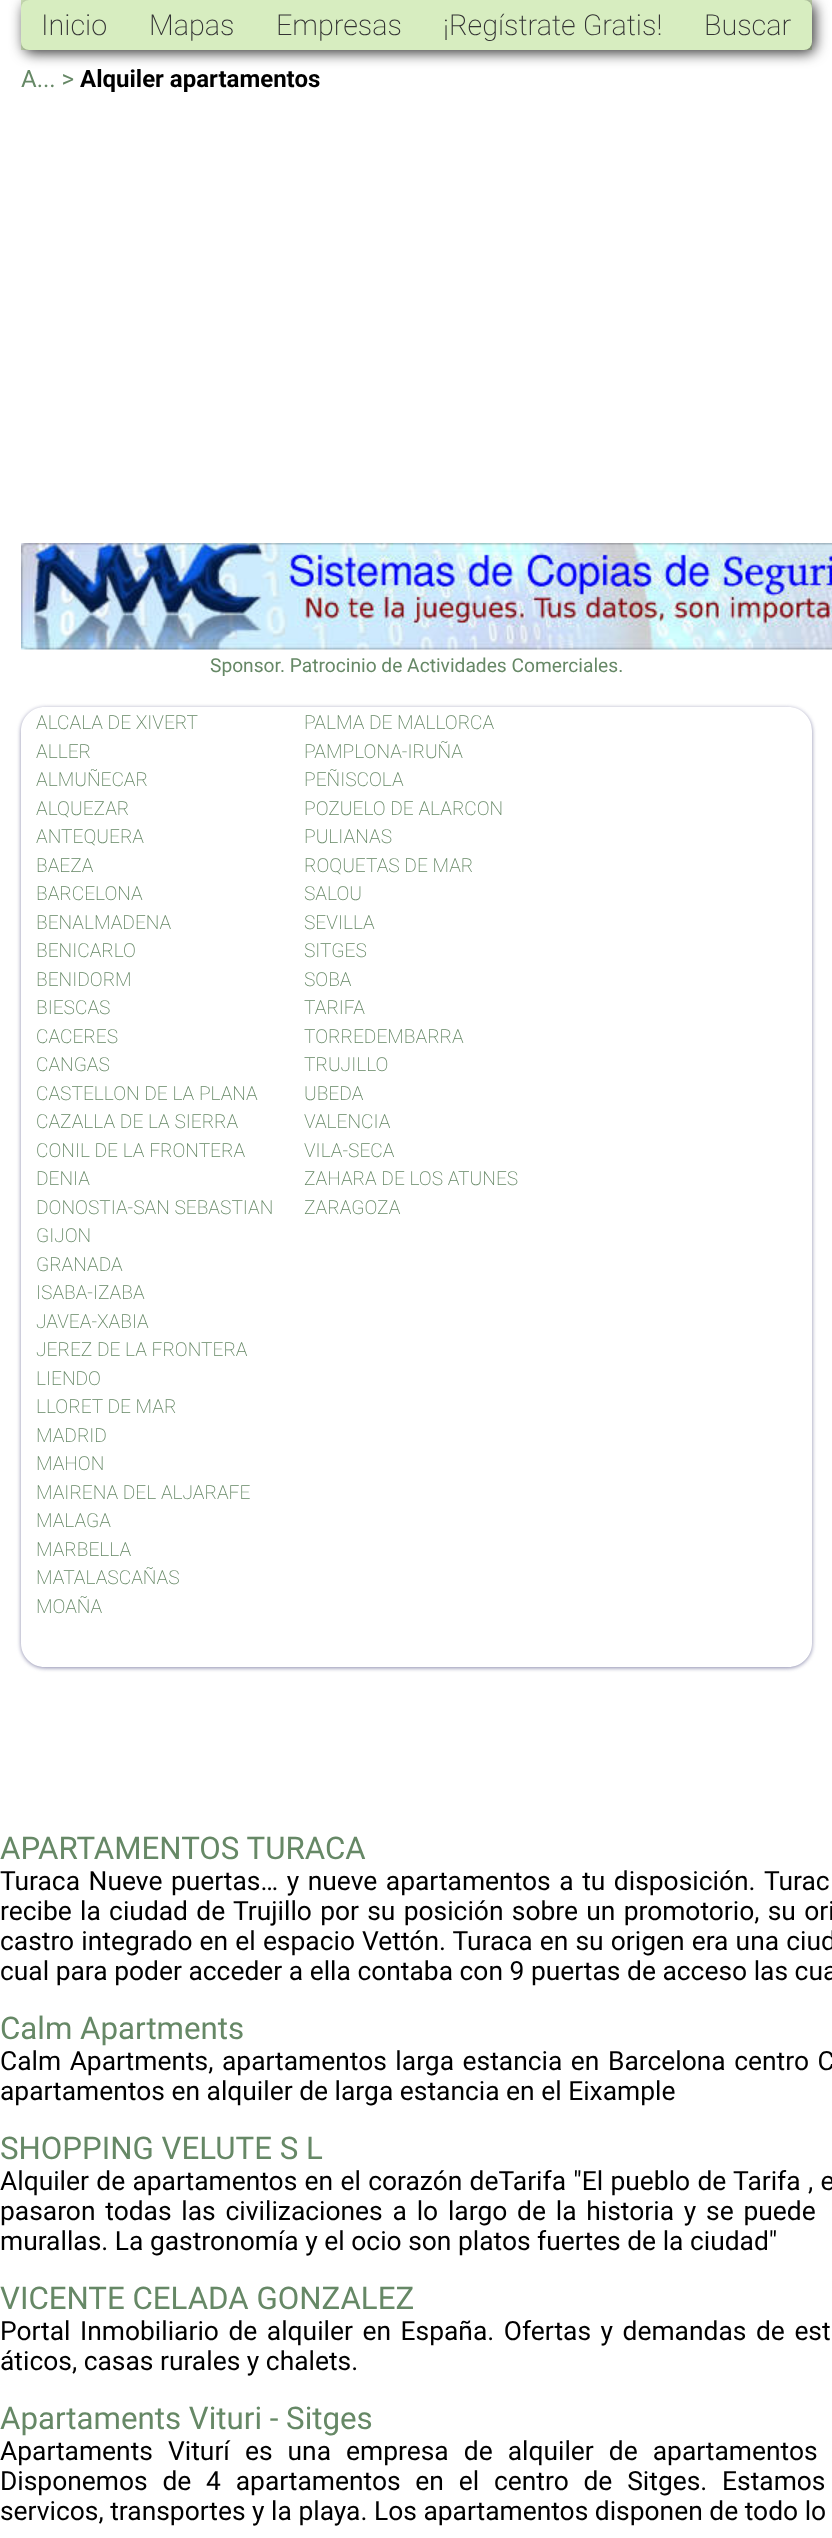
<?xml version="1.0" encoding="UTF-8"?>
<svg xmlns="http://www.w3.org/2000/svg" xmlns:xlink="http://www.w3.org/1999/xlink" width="832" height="2538">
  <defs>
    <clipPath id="clip1"><path d="M 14 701 h 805 v 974 h -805 z m 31 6 h 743 c 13.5 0 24 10.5 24 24 v 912 c 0 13.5 -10.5 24 -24 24 h -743 c -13.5 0 -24 -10.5 -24 -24 v -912 c 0 -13.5 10.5 -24 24 -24 z" clip-rule="evenodd" /></clipPath>
  </defs>
  <rect width="100%" height="100%" fill="#ffffff" />
  <rect x="21" width="791" height="50" fill="#d7edc0" />
  <rect x="24" y="3" width="791" height="50" rx="8" fill="#333333" filter="blur(7px)" />
  <rect x="21" width="791" height="50" rx="8" fill="#d7edc0" />
  <image x="21" y="543" width="811" height="107" xlink:href="image1.png" />
  <g clip-path="url(#clip1)">
    <rect x="21" y="708" width="791" height="960" rx="24" fill="#8888aa" filter="blur(2px)" />
  </g>
  <text x="41" y="35" style="font-family: Roboto; font-size: 28.75px; font-weight: 200; fill: #333333">Inicio</text>
  <text x="149" y="35" style="font-family: Roboto; font-size: 28.75px; font-weight: 200; fill: #333333">Mapas</text>
  <text x="276" y="35" style="font-family: Roboto; font-size: 28.75px; font-weight: 200; fill: #333333">Empresas</text>
  <text x="443" y="35" style="font-family: Roboto; font-size: 28.75px; font-weight: 200; fill: #333333">¡Regístrate Gratis!</text>
  <text x="704" y="35" style="font-family: Roboto; font-size: 28.75px; font-weight: 200; fill: #333333">Buscar</text>
  <text x="21" y="87" style="font-family: Roboto; font-size: 24px; fill: #668866">A... &gt;</text>
  <text x="80" y="87" style="font-family: Roboto; font-size: 24px; font-weight: bold; fill: #000000">Alquiler apartamentos</text>
  <text x="210" y="672" style="font-family: Roboto; font-size: 19.2px; fill: #668866">Sponsor. Patrocinio de Actividades Comerciales.</text>
  <text x="36" y="729" style="font-family: Roboto; font-size: 19.2px; font-weight: 200; fill: #668866">ALCALA DE XIVERT</text>
  <text x="36" y="758" style="font-family: Roboto; font-size: 19.2px; font-weight: 200; fill: #668866">ALLER</text>
  <text x="36" y="786" style="font-family: Roboto; font-size: 19.2px; font-weight: 200; fill: #668866">ALMUÑECAR</text>
  <text x="36" y="815" style="font-family: Roboto; font-size: 19.2px; font-weight: 200; fill: #668866">ALQUEZAR</text>
  <text x="36" y="843" style="font-family: Roboto; font-size: 19.2px; font-weight: 200; fill: #668866">ANTEQUERA</text>
  <text x="36" y="872" style="font-family: Roboto; font-size: 19.2px; font-weight: 200; fill: #668866">BAEZA</text>
  <text x="36" y="900" style="font-family: Roboto; font-size: 19.2px; font-weight: 200; fill: #668866">BARCELONA</text>
  <text x="36" y="929" style="font-family: Roboto; font-size: 19.2px; font-weight: 200; fill: #668866">BENALMADENA</text>
  <text x="36" y="957" style="font-family: Roboto; font-size: 19.2px; font-weight: 200; fill: #668866">BENICARLO</text>
  <text x="36" y="986" style="font-family: Roboto; font-size: 19.2px; font-weight: 200; fill: #668866">BENIDORM</text>
  <text x="36" y="1014" style="font-family: Roboto; font-size: 19.2px; font-weight: 200; fill: #668866">BIESCAS</text>
  <text x="36" y="1043" style="font-family: Roboto; font-size: 19.2px; font-weight: 200; fill: #668866">CACERES</text>
  <text x="36" y="1071" style="font-family: Roboto; font-size: 19.2px; font-weight: 200; fill: #668866">CANGAS</text>
  <text x="36" y="1100" style="font-family: Roboto; font-size: 19.2px; font-weight: 200; fill: #668866">CASTELLON DE LA PLANA</text>
  <text x="36" y="1128" style="font-family: Roboto; font-size: 19.2px; font-weight: 200; fill: #668866">CAZALLA DE LA SIERRA</text>
  <text x="36" y="1157" style="font-family: Roboto; font-size: 19.2px; font-weight: 200; fill: #668866">CONIL DE LA FRONTERA</text>
  <text x="36" y="1185" style="font-family: Roboto; font-size: 19.2px; font-weight: 200; fill: #668866">DENIA</text>
  <text x="36" y="1214" style="font-family: Roboto; font-size: 19.2px; font-weight: 200; fill: #668866">DONOSTIA-SAN SEBASTIAN</text>
  <text x="36" y="1242" style="font-family: Roboto; font-size: 19.2px; font-weight: 200; fill: #668866">GIJON</text>
  <text x="36" y="1271" style="font-family: Roboto; font-size: 19.2px; font-weight: 200; fill: #668866">GRANADA</text>
  <text x="36" y="1299" style="font-family: Roboto; font-size: 19.2px; font-weight: 200; fill: #668866">ISABA-IZABA</text>
  <text x="36" y="1328" style="font-family: Roboto; font-size: 19.2px; font-weight: 200; fill: #668866">JAVEA-XABIA</text>
  <text x="36" y="1356" style="font-family: Roboto; font-size: 19.2px; font-weight: 200; fill: #668866">JEREZ DE LA FRONTERA</text>
  <text x="36" y="1385" style="font-family: Roboto; font-size: 19.2px; font-weight: 200; fill: #668866">LIENDO</text>
  <text x="36" y="1413" style="font-family: Roboto; font-size: 19.2px; font-weight: 200; fill: #668866">LLORET DE MAR</text>
  <text x="36" y="1442" style="font-family: Roboto; font-size: 19.2px; font-weight: 200; fill: #668866">MADRID</text>
  <text x="36" y="1470" style="font-family: Roboto; font-size: 19.2px; font-weight: 200; fill: #668866">MAHON</text>
  <text x="36" y="1499" style="font-family: Roboto; font-size: 19.2px; font-weight: 200; fill: #668866">MAIRENA DEL ALJARAFE</text>
  <text x="36" y="1527" style="font-family: Roboto; font-size: 19.2px; font-weight: 200; fill: #668866">MALAGA</text>
  <text x="36" y="1556" style="font-family: Roboto; font-size: 19.2px; font-weight: 200; fill: #668866">MARBELLA</text>
  <text x="36" y="1584" style="font-family: Roboto; font-size: 19.2px; font-weight: 200; fill: #668866">MATALASCAÑAS</text>
  <text x="36" y="1613" style="font-family: Roboto; font-size: 19.2px; font-weight: 200; fill: #668866">MOAÑA</text>
  <text x="304" y="729" style="font-family: Roboto; font-size: 19.2px; font-weight: 200; fill: #668866">PALMA DE MALLORCA</text>
  <text x="304" y="758" style="font-family: Roboto; font-size: 19.2px; font-weight: 200; fill: #668866">PAMPLONA-IRUÑA</text>
  <text x="304" y="786" style="font-family: Roboto; font-size: 19.2px; font-weight: 200; fill: #668866">PEÑISCOLA</text>
  <text x="304" y="815" style="font-family: Roboto; font-size: 19.2px; font-weight: 200; fill: #668866">POZUELO DE ALARCON</text>
  <text x="304" y="843" style="font-family: Roboto; font-size: 19.2px; font-weight: 200; fill: #668866">PULIANAS</text>
  <text x="304" y="872" style="font-family: Roboto; font-size: 19.2px; font-weight: 200; fill: #668866">ROQUETAS DE MAR</text>
  <text x="304" y="900" style="font-family: Roboto; font-size: 19.2px; font-weight: 200; fill: #668866">SALOU</text>
  <text x="304" y="929" style="font-family: Roboto; font-size: 19.2px; font-weight: 200; fill: #668866">SEVILLA</text>
  <text x="304" y="957" style="font-family: Roboto; font-size: 19.2px; font-weight: 200; fill: #668866">SITGES</text>
  <text x="304" y="986" style="font-family: Roboto; font-size: 19.2px; font-weight: 200; fill: #668866">SOBA</text>
  <text x="304" y="1014" style="font-family: Roboto; font-size: 19.2px; font-weight: 200; fill: #668866">TARIFA</text>
  <text x="304" y="1043" style="font-family: Roboto; font-size: 19.2px; font-weight: 200; fill: #668866">TORREDEMBARRA</text>
  <text x="304" y="1071" style="font-family: Roboto; font-size: 19.2px; font-weight: 200; fill: #668866">TRUJILLO</text>
  <text x="304" y="1100" style="font-family: Roboto; font-size: 19.2px; font-weight: 200; fill: #668866">UBEDA</text>
  <text x="304" y="1128" style="font-family: Roboto; font-size: 19.2px; font-weight: 200; fill: #668866">VALENCIA</text>
  <text x="304" y="1157" style="font-family: Roboto; font-size: 19.2px; font-weight: 200; fill: #668866">VILA-SECA</text>
  <text x="304" y="1185" style="font-family: Roboto; font-size: 19.2px; font-weight: 200; fill: #668866">ZAHARA DE LOS ATUNES</text>
  <text x="304" y="1214" style="font-family: Roboto; font-size: 19.2px; font-weight: 200; fill: #668866">ZARAGOZA</text>
  <text x="0" y="1859" style="font-family: Roboto; font-size: 31.25px; fill: #668866">APARTAMENTOS TURACA</text>
  <text x="0" y="1890" word-spacing="2" style="font-family: Roboto; font-size: 26.4px; fill: #000000">Turaca Nueve puertas… y nueve apartamentos a tu disposición.</text>
  <text x="764" y="1890" word-spacing="2" style="font-family: Roboto; font-size: 26.4px; fill: #000000">Turac</text>
  <text x="0" y="1920" word-spacing="1.75" style="font-family: Roboto; font-size: 26.4px; fill: #000000">recibe la ciudad de Trujillo por su posición sobre un promotorio, su ori</text>
  <text x="0" y="1950" word-spacing="0.6" style="font-family: Roboto; font-size: 26.4px; fill: #000000">castro integrado en el espacio Vettón. Turaca en su origen era una ciud</text>
  <text x="0" y="1980" style="font-family: Roboto; font-size: 26.4px; fill: #000000">cual para poder acceder a ella contaba con 9 puertas de acceso las cua</text>
  <text x="0" y="2039" style="font-family: Roboto; font-size: 31.25px; fill: #668866">Calm Apartments</text>
  <text x="0" y="2070" word-spacing="2" style="font-family: Roboto; font-size: 26.4px; fill: #000000">Calm Apartments, apartamentos larga estancia en Barcelona centro C</text>
  <text x="0" y="2100" style="font-family: Roboto; font-size: 26.4px; fill: #000000">apartamentos en alquiler de larga estancia en el Eixample</text>
  <text x="0" y="2159" style="font-family: Roboto; font-size: 31.25px; fill: #668866">SHOPPING VELUTE S L</text>
  <text x="0" y="2190" word-spacing="0.75" style="font-family: Roboto; font-size: 26.4px; fill: #000000">Alquiler de apartamentos en el corazón deTarifa "El pueblo de Tarifa , e</text>
  <text x="0" y="2220" word-spacing="3.25" style="font-family: Roboto; font-size: 26.4px; fill: #000000">pasaron todas las civilizaciones a lo largo de la historia y se puede</text>
  <text x="0" y="2250" style="font-family: Roboto; font-size: 26.4px; fill: #000000">murallas. La gastronomía y el ocio son platos fuertes de la ciudad"</text>
  <text x="0" y="2309" style="font-family: Roboto; font-size: 31.25px; fill: #668866">VICENTE CELADA GONZALEZ</text>
  <text x="0" y="2340" word-spacing="3" style="font-family: Roboto; font-size: 26.4px; fill: #000000">Portal Inmobiliario de alquiler en España. Ofertas y demandas de est</text>
  <text x="0" y="2370" style="font-family: Roboto; font-size: 26.4px; fill: #000000">áticos, casas rurales y chalets.</text>
  <text x="0" y="2429" style="font-family: Roboto; font-size: 31.25px; fill: #668866">Apartaments Vituri - Sitges</text>
  <text x="0" y="2460" word-spacing="8.5" style="font-family: Roboto; font-size: 26.4px; fill: #000000">Apartaments Viturí es una empresa de alquiler de apartamentos</text>
  <text x="0" y="2490" word-spacing="8.25" style="font-family: Roboto; font-size: 26.4px; fill: #000000">Disponemos de 4 apartamentos en el centro de Sitges. Estamos</text>
  <text x="0" y="2520" style="font-family: Roboto; font-size: 26.4px; fill: #000000">servicos, transportes y la playa. Los apartamentos disponen de todo lo</text>
</svg>
